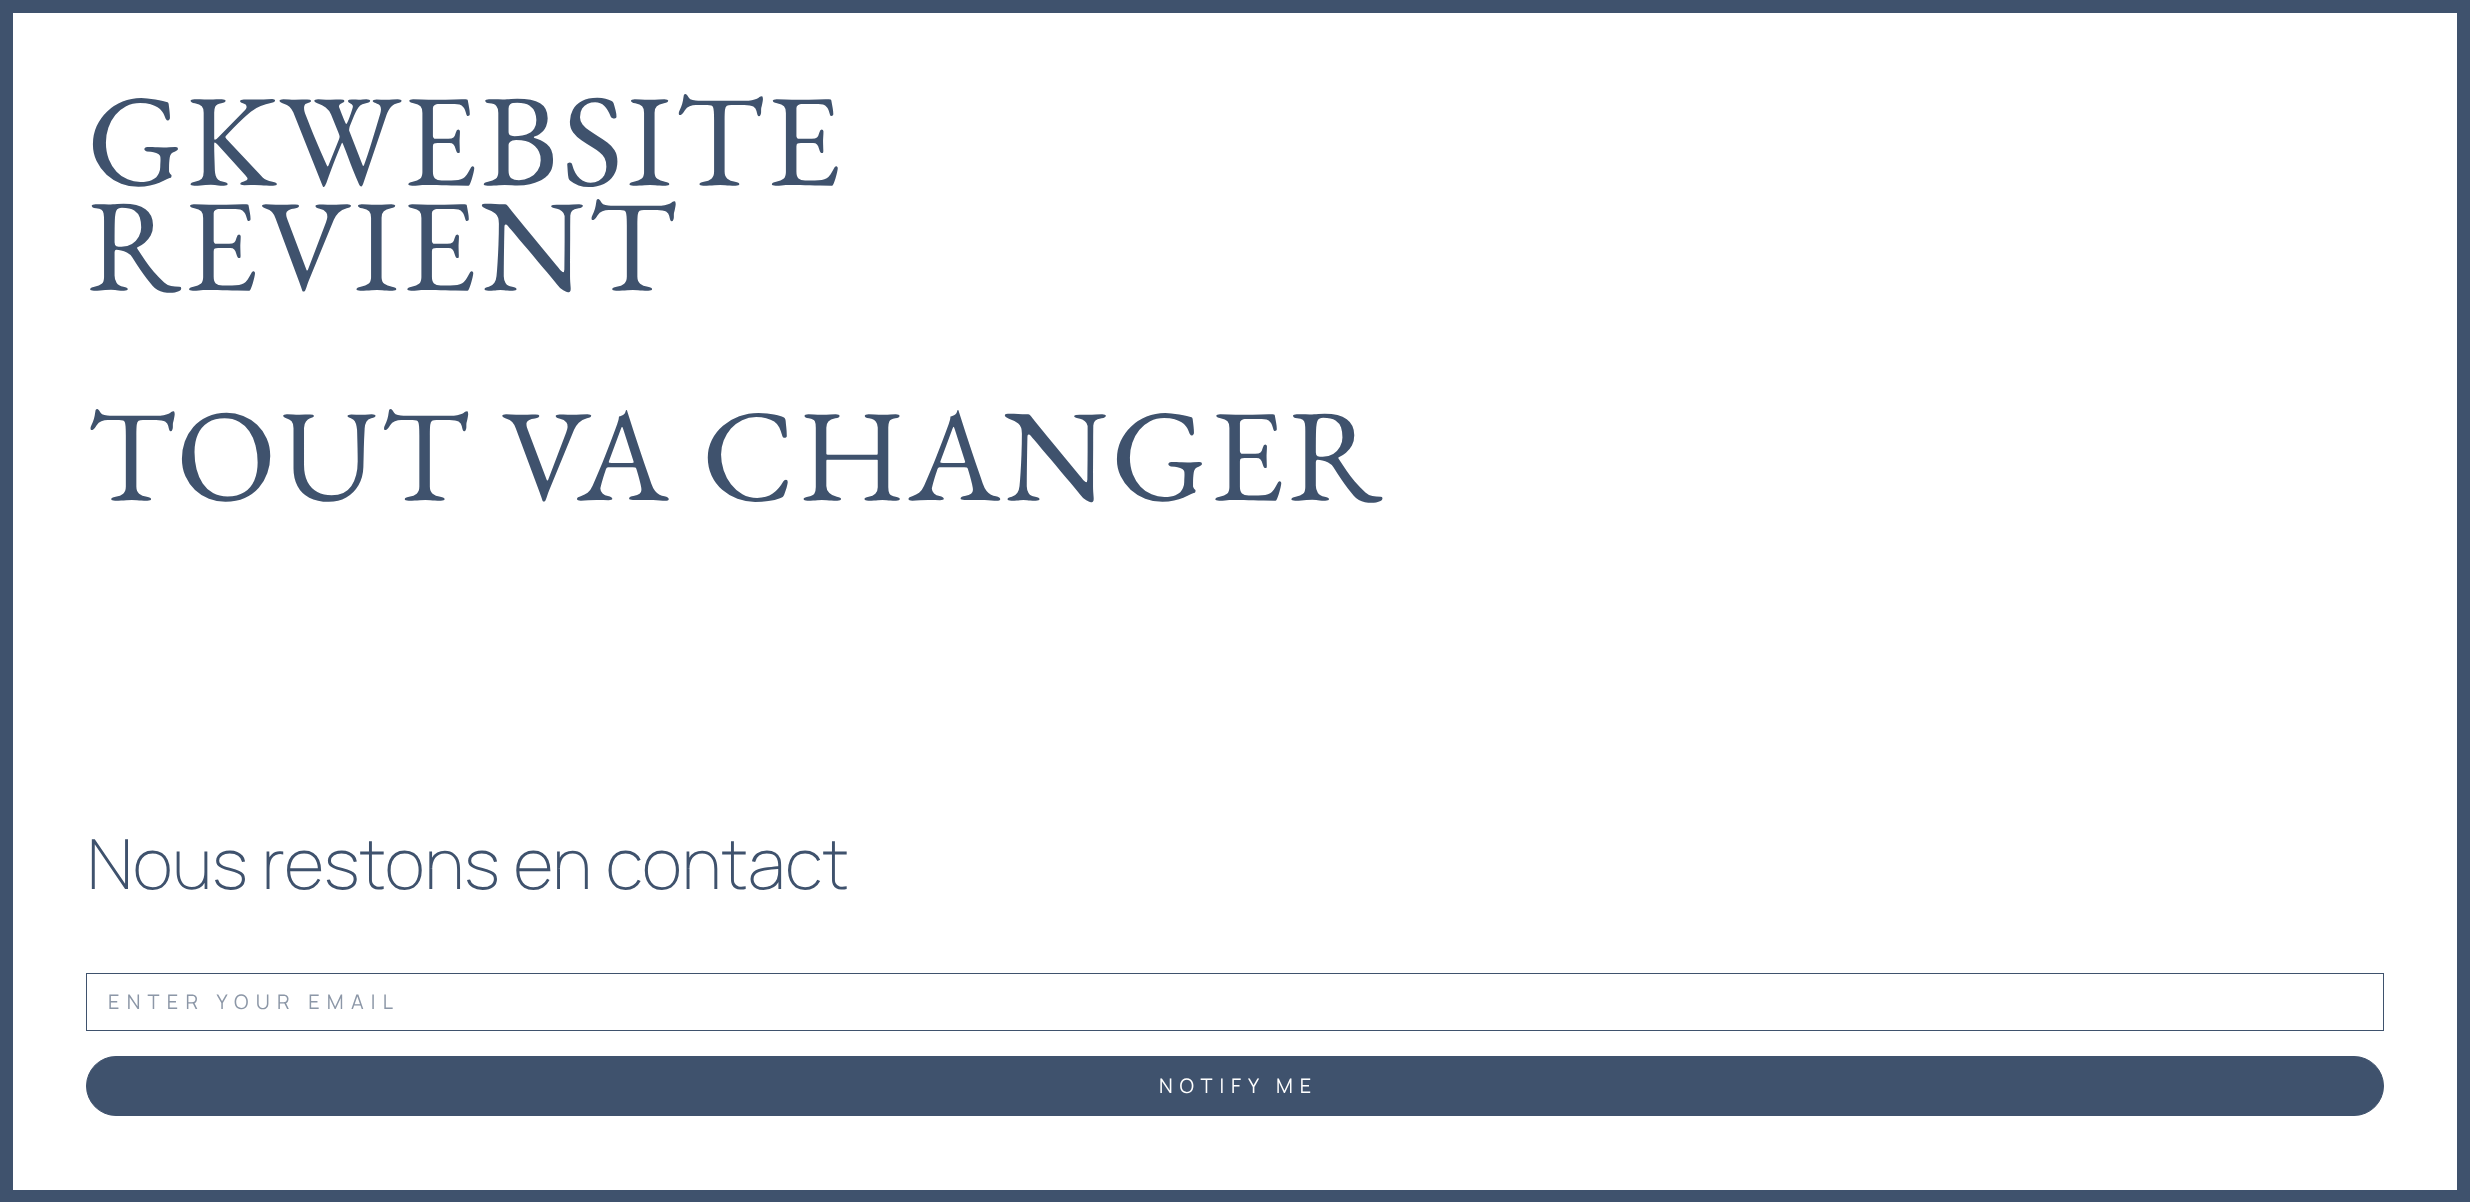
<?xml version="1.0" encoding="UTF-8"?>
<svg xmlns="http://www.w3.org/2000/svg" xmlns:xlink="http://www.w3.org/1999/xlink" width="2470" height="1202">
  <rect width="100%" height="100%" fill="#ffffff" />
  <rect x="6.5" y="6.5" width="2457" height="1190" fill="none" stroke="#3f526d" stroke-width="13" />
  <rect x="86.5" y="973.5" width="2297" height="57" fill="none" stroke="#3f526d" />
  <rect x="86.5" y="1056.5" width="2297" height="59" rx="29.5" fill="#3f526d" stroke="#3f526d" />
  <text x="87" y="185" style="font-family: EB Garamond; font-size: 131.25px; letter-spacing: 3.75px; fill: #3f526d">GKWEBSITE</text>
  <text x="87" y="290" style="font-family: EB Garamond; font-size: 131.25px; letter-spacing: 3.75px; fill: #3f526d">REVIENT</text>
  <text x="87" y="500" style="font-family: EB Garamond; font-size: 131.25px; letter-spacing: 3.75px; fill: #3f526d">TOUT VA CHANGER</text>
  <text x="87" y="889" style="font-family: Manrope; font-size: 69.25px; font-weight: 200; fill: #3f526d">Nous restons en contact</text>
  <text x="108" y="1009" style="font-family: Manrope; font-size: 20px; letter-spacing: 7.25px; fill: #8c97a7">ENTER YOUR EMAIL</text>
  <text x="1159" y="1093" style="font-family: Manrope; font-size: 20px; letter-spacing: 6.9px; fill: #ffffff">NOTIFY ME</text>
</svg>
